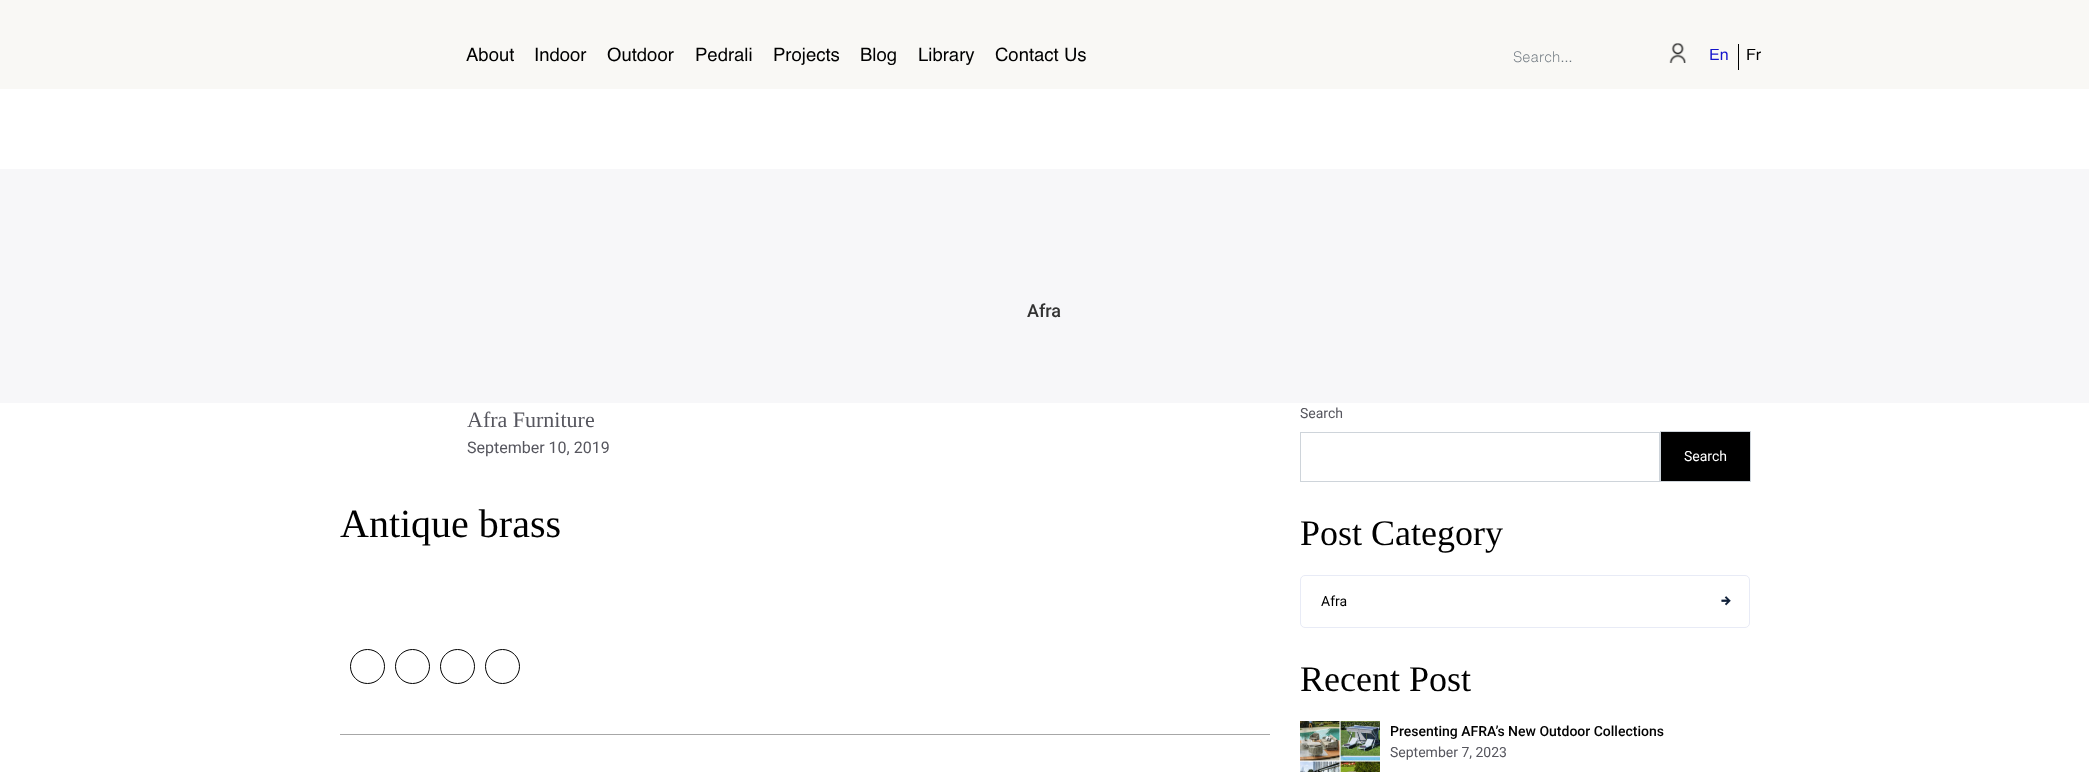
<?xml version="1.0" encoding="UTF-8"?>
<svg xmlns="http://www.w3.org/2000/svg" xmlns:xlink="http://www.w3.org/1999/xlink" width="2089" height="772">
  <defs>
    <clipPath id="clip1"><rect x="1709" y="49" width="19" height="16" /></clipPath>
    <clipPath id="clip2"><rect x="1746" y="49" width="15" height="16" /></clipPath>
  </defs>
  <rect width="100%" height="100%" fill="#ffffff" />
  <rect width="2089" height="89" fill="#f9f8f5" />
  <image x="1669" y="43" width="17" height="20" xlink:href="image1.png" />
  <rect x="1738" y="44" width="1" height="26" fill="#000000" />
  <rect y="169" width="2089" height="234" fill="#f7f7f9" />
  <rect x="340" y="734" width="930" height="1" fill="#a7a7a7" />
  <circle cx="367.5" cy="666.5" r="17" fill="none" stroke="#000000" />
  <circle cx="412.5" cy="666.5" r="17" fill="none" stroke="#000000" />
  <circle cx="457.5" cy="666.5" r="17" fill="none" stroke="#000000" />
  <circle cx="502.5" cy="666.5" r="17" fill="none" stroke="#000000" />
  <rect x="1300.5" y="432.5" width="359" height="49" fill="none" stroke="#ced4da" />
  <rect x="1660.5" y="431.5" width="90" height="50" fill="#000000" stroke="#ced4da" />
  <image x="1721" y="596" width="10" height="10" xlink:href="image2.png" />
  <rect x="1300.5" y="575.5" width="449" height="52" rx="4.5" fill="none" stroke="#e8ebf6" />
  <image x="1300" y="721" width="80" height="51" xlink:href="image3.png" />
  <text x="466" y="61" style="font-family: Helvetica; font-size: 18.5px; fill: #000000">About</text>
  <text x="534" y="61" style="font-family: Helvetica; font-size: 18.5px; fill: #000000">Indoor</text>
  <text x="607" y="61" style="font-family: Helvetica; font-size: 18.5px; fill: #000000">Outdoor</text>
  <text x="695" y="61" style="font-family: Helvetica; font-size: 18.5px; fill: #000000">Pedrali</text>
  <text x="773" y="61" style="font-family: Helvetica; font-size: 18.5px; fill: #000000">Projects</text>
  <text x="860" y="61" style="font-family: Helvetica; font-size: 18.5px; fill: #000000">Blog</text>
  <text x="918" y="61" style="font-family: Helvetica; font-size: 18.5px; fill: #000000">Library</text>
  <text x="995" y="61" style="font-family: Helvetica; font-size: 18.5px; fill: #000000">Contact Us</text>
  <text x="1513" y="62" style="font-family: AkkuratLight; font-size: 15px; font-weight: 300; fill: #6c757d">Search...</text>
  <g clip-path="url(#clip1)">
    <text x="1709" y="60" style="font-family: Helvetica; font-size: 16px; fill: #1313cb">En</text>
  </g>
  <g clip-path="url(#clip2)">
    <text x="1746" y="60" style="font-family: Helvetica; font-size: 16px; fill: #000000">Fr</text>
  </g>
  <text x="1027" y="317" style="font-family: Roboto; font-size: 18px; font-weight: 500; fill: #333333">Afra</text>
  <text x="467" y="427" style="font-family: Liberation Serif; font-size: 22px; fill: #56565e">Afra Furniture</text>
  <text x="467" y="453" style="font-family: Roboto; font-size: 16px; fill: #56565e">September 10, 2019</text>
  <text x="340" y="537" style="font-family: Liberation Serif; font-size: 40px; fill: #000000">Antique brass</text>
  <text x="1300" y="418" style="font-family: Roboto; font-size: 14px; fill: #56565e">Search</text>
  <text x="1684" y="461" style="font-family: Roboto; font-size: 14px; fill: #ffffff">Search</text>
  <text x="1300" y="545" style="font-family: Liberation Serif; font-size: 36px; fill: #000000">Post Category</text>
  <text x="1321" y="606" style="font-family: Roboto; font-size: 14px; fill: #000000">Afra</text>
  <text x="1300" y="691" style="font-family: Liberation Serif; font-size: 36px; fill: #000000">Recent Post</text>
  <text x="1390" y="736" style="font-family: Roboto; font-size: 14px; font-weight: 500; fill: #000000">Presenting AFRA’s New Outdoor Collections</text>
  <text x="1390" y="757" style="font-family: Roboto; font-size: 14px; fill: #56565e">September 7, 2023</text>
</svg>
